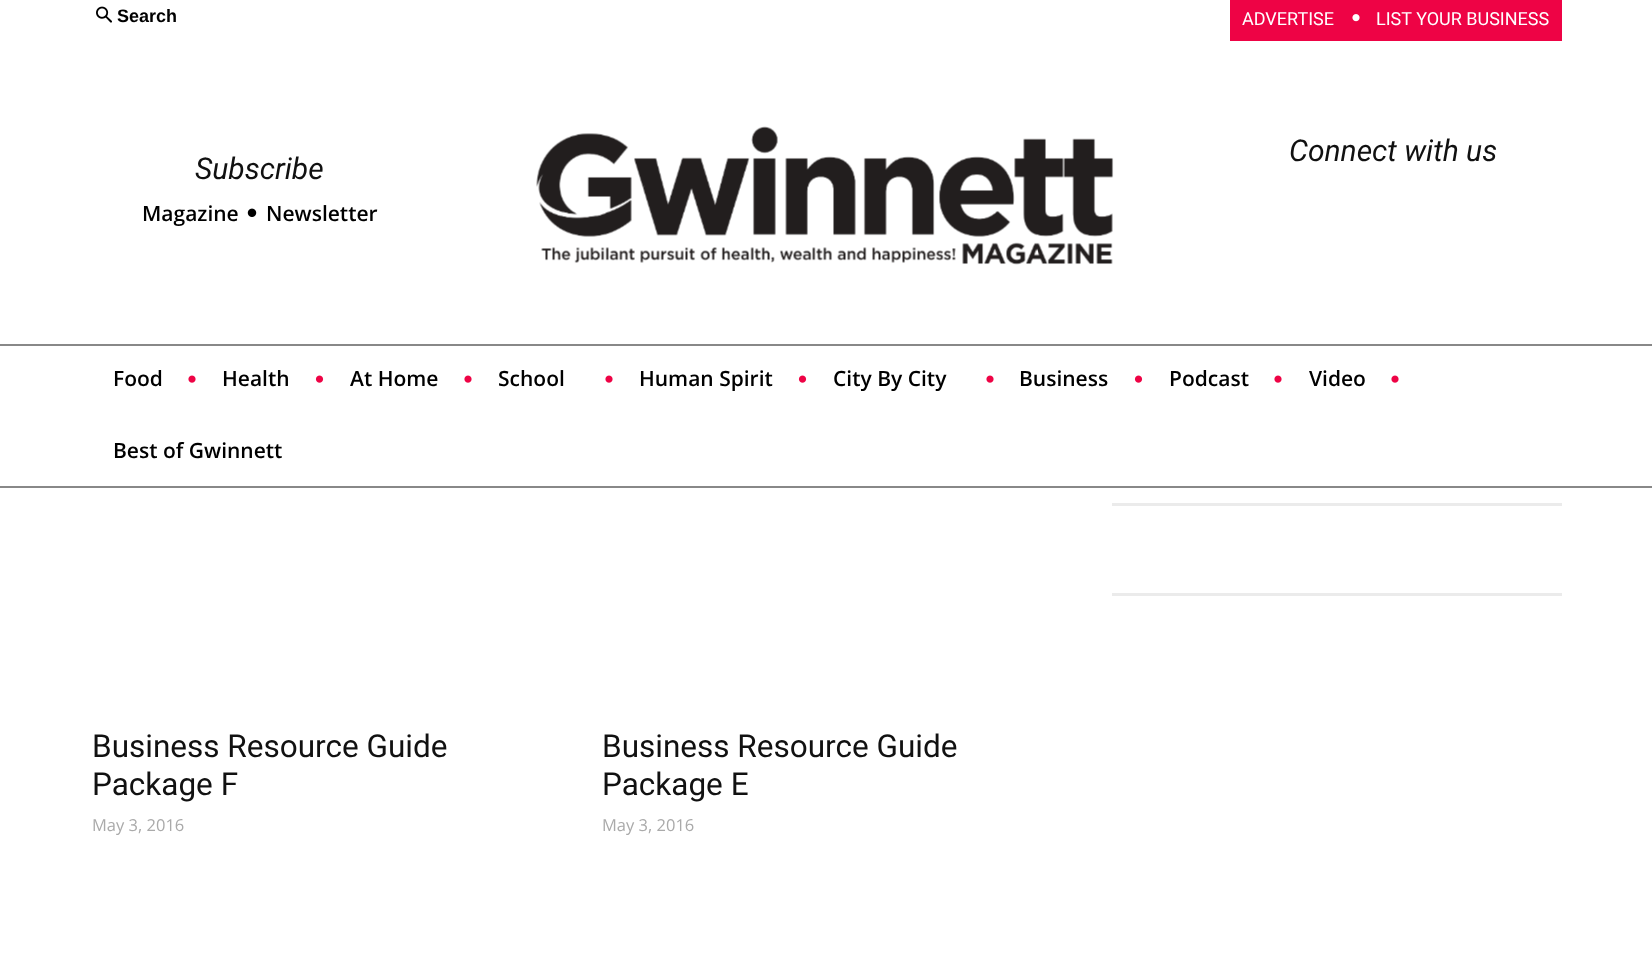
<?xml version="1.0" encoding="UTF-8"?>
<svg xmlns="http://www.w3.org/2000/svg" xmlns:xlink="http://www.w3.org/1999/xlink" width="1652" height="953">
  <rect width="100%" height="100%" fill="#ffffff" />
  <image x="96" y="6" width="16" height="17" xlink:href="image1.png" />
  <rect x="1230" width="332" height="41" fill="#ee0345" />
  <image x="1352" y="14" width="8" height="8" xlink:href="image2.png" />
  <image x="536" y="126" width="578" height="139" xlink:href="image3.png" />
  <image x="247" y="208" width="10" height="9" xlink:href="image4.png" />
  <rect y="344" width="1652" height="2" fill="#888888" />
  <rect y="486" width="1652" height="2" fill="#888888" />
  <image x="188" y="375" width="8" height="8" xlink:href="image5.png" />
  <image x="315" y="375" width="9" height="8" xlink:href="image6.png" />
  <image x="464" y="375" width="8" height="8" xlink:href="image5.png" />
  <image x="605" y="375" width="8" height="8" xlink:href="image5.png" />
  <image x="798" y="375" width="9" height="8" xlink:href="image6.png" />
  <image x="986" y="375" width="8" height="8" xlink:href="image5.png" />
  <image x="1134" y="375" width="9" height="8" xlink:href="image6.png" />
  <image x="1274" y="375" width="8" height="8" xlink:href="image5.png" />
  <image x="1391" y="375" width="8" height="8" xlink:href="image5.png" />
  <rect x="1112" y="503" width="450" height="3" fill="#ebebeb" />
  <rect x="1112" y="593" width="450" height="3" fill="#ebebeb" />
  <text x="117" y="22" style="font-family: Liberation Sans; font-size: 18px; font-weight: bold; fill: #000000">Search</text>
  <text x="1242" y="25" style="font-family: Roboto; font-size: 18px; fill: #ffffff">ADVERTISE</text>
  <text x="1376" y="25" style="font-family: Roboto; font-size: 18px; fill: #ffffff">LIST YOUR BUSINESS</text>
  <text x="1289" y="161" style="font-family: Roboto; font-size: 30px; font-style: italic; fill: #111111">Connect with us</text>
  <text x="195" y="179" style="font-family: Roboto; font-size: 30px; font-style: italic; fill: #111111">Subscribe</text>
  <text x="142" y="221" style="font-family: Open Sans; font-size: 21px; font-weight: 600; fill: #000000">Magazine</text>
  <text x="266" y="221" style="font-family: Open Sans; font-size: 21px; font-weight: 600; fill: #000000">Newsletter</text>
  <text x="113" y="386" style="font-family: Open Sans; font-size: 21px; font-weight: 600; fill: #000000">Food</text>
  <text x="222" y="386" style="font-family: Open Sans; font-size: 21px; font-weight: 600; fill: #000000">Health</text>
  <text x="350" y="386" style="font-family: Open Sans; font-size: 21px; font-weight: 600; fill: #000000">At Home</text>
  <text x="498" y="386" style="font-family: Open Sans; font-size: 21px; font-weight: 600; fill: #000000">School</text>
  <text x="639" y="386" style="font-family: Open Sans; font-size: 21px; font-weight: 600; fill: #000000">Human Spirit</text>
  <text x="833" y="386" style="font-family: Open Sans; font-size: 21px; font-weight: 600; fill: #000000">City By City</text>
  <text x="1019" y="386" style="font-family: Open Sans; font-size: 21px; font-weight: 600; fill: #000000">Business</text>
  <text x="1169" y="386" style="font-family: Open Sans; font-size: 21px; font-weight: 600; fill: #000000">Podcast</text>
  <text x="1309" y="386" style="font-family: Open Sans; font-size: 21px; font-weight: 600; fill: #000000">Video</text>
  <text x="113" y="458" style="font-family: Open Sans; font-size: 21px; font-weight: 600; fill: #000000">Best of Gwinnett</text>
  <text x="92" y="757" style="font-family: Roboto; font-size: 31.5px; fill: #111111">Business Resource Guide</text>
  <text x="92" y="795" style="font-family: Roboto; font-size: 31.5px; fill: #111111">Package F</text>
  <text x="92" y="831" style="font-family: Open Sans; font-size: 16.5px; fill: #aaaaaa">May 3, 2016</text>
  <text x="602" y="757" style="font-family: Roboto; font-size: 31.5px; fill: #111111">Business Resource Guide</text>
  <text x="602" y="795" style="font-family: Roboto; font-size: 31.5px; fill: #111111">Package E</text>
  <text x="602" y="831" style="font-family: Open Sans; font-size: 16.5px; fill: #aaaaaa">May 3, 2016</text>
</svg>
